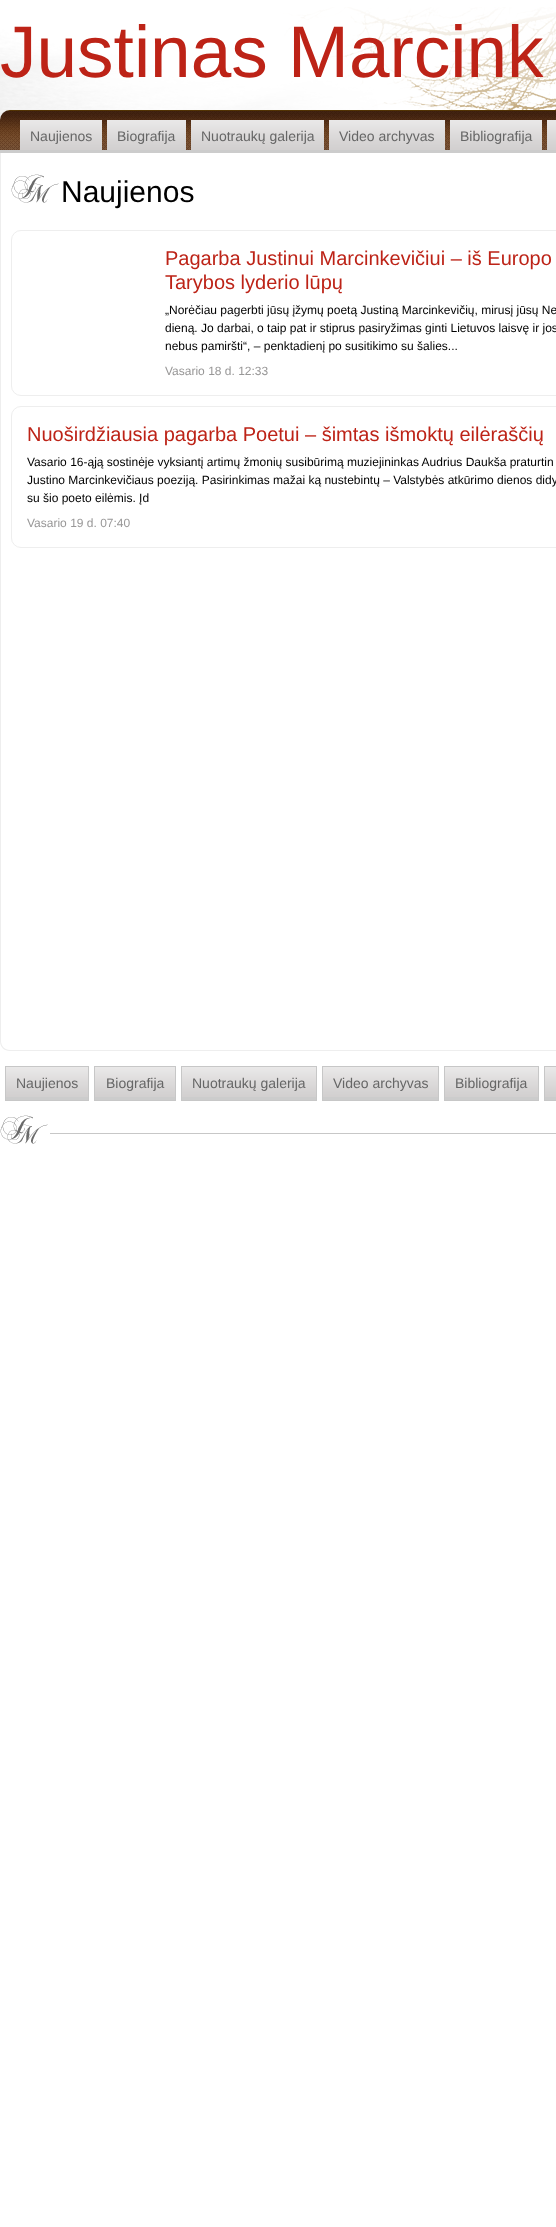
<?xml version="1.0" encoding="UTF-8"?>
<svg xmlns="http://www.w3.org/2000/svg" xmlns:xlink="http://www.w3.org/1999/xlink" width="556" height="2227">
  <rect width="100%" height="100%" fill="#ffffff" />
  <image x="0" y="7" width="556" height="113" xlink:href="image1.png" />
  <image x="0" y="110" width="556" height="43" xlink:href="image2.png" />
  <image x="20" y="120" width="82" height="30" xlink:href="image3.png" />
  <image x="107" y="120" width="79" height="30" xlink:href="image4.png" />
  <image x="191" y="120" width="133" height="30" xlink:href="image5.png" />
  <image x="329" y="120" width="116" height="30" xlink:href="image6.png" />
  <image x="450" y="120" width="92" height="30" xlink:href="image7.png" />
  <image x="547" y="120" width="9" height="30" xlink:href="image8.png" />
  <path d="M 0 153 h 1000 v 888 c 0 6 -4 10 -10 10 h -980 c -6 0 -10 -4 -10 -10 z m 1 0 h 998 v 888 c 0 5 -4 9 -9 9 h -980 c -5 0 -9 -4 -9 -9 z" fill="#eeeeee" fill-rule="evenodd" />
  <image x="11" y="174" width="48" height="29" xlink:href="image9.png" />
  <rect x="11.5" y="230.5" width="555" height="165" rx="9.5" fill="none" stroke="#eeeeee" />
  <rect x="11.5" y="406.5" width="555" height="141" rx="9.5" fill="none" stroke="#eeeeee" />
  <image x="6" y="1067" width="82" height="33" xlink:href="image10.png" />
  <rect x="5.5" y="1066.5" width="83" height="34" fill="none" stroke="#c7c7c7" />
  <image x="95" y="1067" width="80" height="33" xlink:href="image11.png" />
  <rect x="94.5" y="1066.5" width="81" height="34" fill="none" stroke="#c7c7c7" />
  <image x="182" y="1067" width="134" height="33" xlink:href="image12.png" />
  <rect x="181.5" y="1066.5" width="135" height="34" fill="none" stroke="#c7c7c7" />
  <image x="323" y="1067" width="115" height="33" xlink:href="image13.png" />
  <rect x="322.5" y="1066.5" width="116" height="34" fill="none" stroke="#c7c7c7" />
  <image x="445" y="1067" width="93" height="33" xlink:href="image14.png" />
  <rect x="444.5" y="1066.5" width="94" height="34" fill="none" stroke="#c7c7c7" />
  <image x="545" y="1067" width="11" height="33" xlink:href="image15.png" />
  <rect x="544.5" y="1066.5" width="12" height="34" fill="none" stroke="#c7c7c7" />
  <image x="0" y="1115" width="48" height="29" xlink:href="image9.png" />
  <rect x="50" y="1133" width="506" height="1" fill="#c7c7c7" />
  <text x="0" y="77" style="font-family: Liberation Sans; font-size: 73px; fill: #bd2317">Justinas Marcink</text>
  <text x="30" y="141" style="font-family: Liberation Sans; font-size: 14px; fill: #666666">Naujienos</text>
  <text x="117" y="141" style="font-family: Liberation Sans; font-size: 14px; fill: #666666">Biografija</text>
  <text x="201" y="141" style="font-family: Liberation Sans; font-size: 14px; fill: #666666">Nuotraukų galerija</text>
  <text x="339" y="141" style="font-family: Liberation Sans; font-size: 14px; fill: #666666">Video archyvas</text>
  <text x="460" y="141" style="font-family: Liberation Sans; font-size: 14px; fill: #666666">Bibliografija</text>
  <text x="61" y="202" style="font-family: Liberation Sans; font-size: 30px; fill: #000000">Naujienos</text>
  <text x="165" y="265" style="font-family: Liberation Sans; font-size: 20px; fill: #bd2317">Pagarba Justinui Marcinkevičiui – iš Europo</text>
  <text x="165" y="289" style="font-family: Liberation Sans; font-size: 20px; fill: #bd2317">Tarybos lyderio lūpų</text>
  <text x="165" y="314" style="font-family: Liberation Sans; font-size: 12px; fill: #000000">„Norėčiau pagerbti jūsų įžymų poetą Justiną Marcinkevičių, mirusį jūsų Ne</text>
  <text x="165" y="332" style="font-family: Liberation Sans; font-size: 12px; fill: #000000">dieną. Jo darbai, o taip pat ir stiprus pasiryžimas ginti Lietuvos laisvę ir jos</text>
  <text x="165" y="350" style="font-family: Liberation Sans; font-size: 12px; fill: #000000">nebus pamiršti“, – penktadienį po susitikimo su šalies...</text>
  <text x="165" y="375" style="font-family: Liberation Sans; font-size: 12px; fill: #989797">Vasario 18 d. 12:33</text>
  <text x="27" y="441" style="font-family: Liberation Sans; font-size: 20px; fill: #bd2317">Nuoširdžiausia pagarba Poetui – šimtas išmoktų eilėraščių</text>
  <text x="27" y="466" style="font-family: Liberation Sans; font-size: 12px; fill: #000000">Vasario 16-ąją sostinėje vyksiantį artimų žmonių susibūrimą muziejininkas Audrius Daukša praturtin</text>
  <text x="27" y="484" style="font-family: Liberation Sans; font-size: 12px; fill: #000000">Justino Marcinkevičiaus poeziją. Pasirinkimas mažai ką nustebintų – Valstybės atkūrimo dienos didy</text>
  <text x="27" y="502" style="font-family: Liberation Sans; font-size: 12px; fill: #000000">su šio poeto eilėmis. Įd</text>
  <text x="27" y="527" style="font-family: Liberation Sans; font-size: 12px; fill: #989797">Vasario 19 d. 07:40</text>
  <text x="16" y="1088" style="font-family: Liberation Sans; font-size: 14px; fill: #666666">Naujienos</text>
  <text x="106" y="1088" style="font-family: Liberation Sans; font-size: 14px; fill: #666666">Biografija</text>
  <text x="192" y="1088" style="font-family: Liberation Sans; font-size: 14px; fill: #666666">Nuotraukų galerija</text>
  <text x="333" y="1088" style="font-family: Liberation Sans; font-size: 14px; fill: #666666">Video archyvas</text>
  <text x="455" y="1088" style="font-family: Liberation Sans; font-size: 14px; fill: #666666">Bibliografija</text>
</svg>
